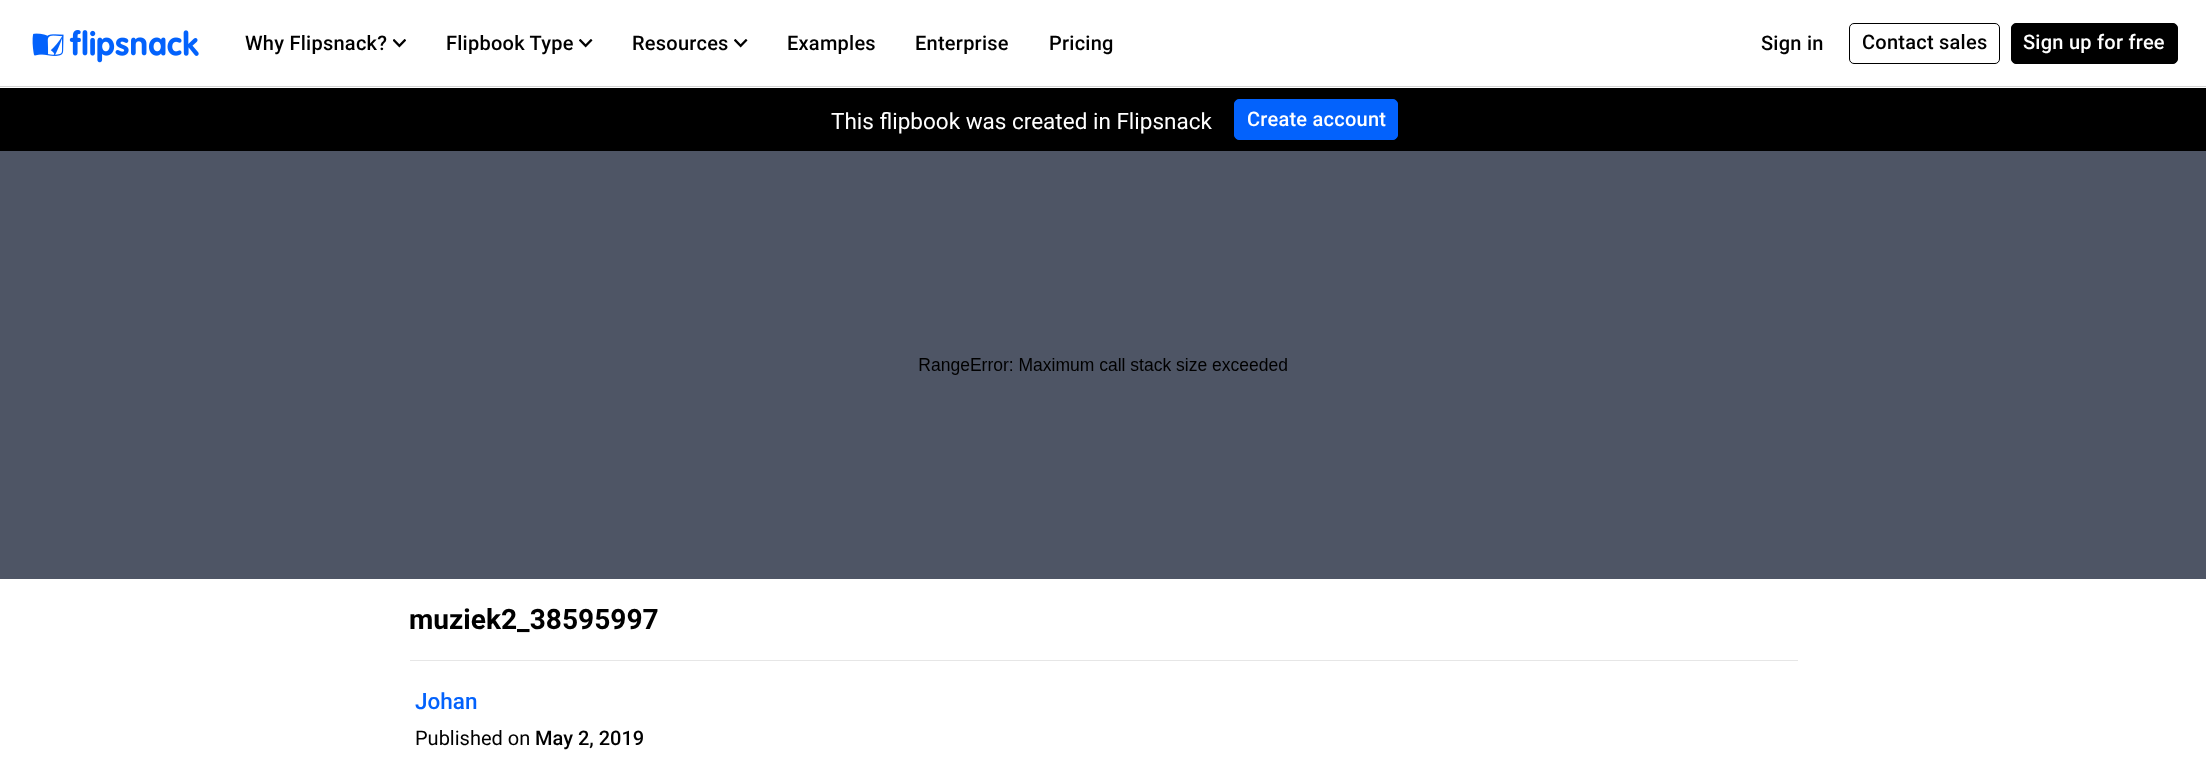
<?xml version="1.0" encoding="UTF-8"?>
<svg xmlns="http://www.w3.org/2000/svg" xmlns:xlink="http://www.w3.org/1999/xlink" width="2206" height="758">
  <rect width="100%" height="100%" fill="#ffffff" />
  <rect y="86" width="2206" height="1" fill="#d5d5d5" />
  <image x="32" y="30" width="167" height="33" xlink:href="image1.png" />
  <image x="393" y="39" width="13" height="9" xlink:href="image2.png" />
  <image x="579" y="39" width="14" height="9" xlink:href="image3.png" />
  <image x="734" y="39" width="14" height="9" xlink:href="image3.png" />
  <rect x="1849.5" y="23.5" width="150" height="40" rx="4.5" fill="none" stroke="#000000" />
  <rect x="2011.5" y="23.5" width="166" height="40" rx="4.5" fill="#000000" stroke="#000000" />
  <rect y="88" width="2206" height="63" fill="#000000" />
  <rect x="1234.5" y="99.5" width="163" height="40" rx="4.5" fill="#0362fc" stroke="#0362fc" />
  <rect y="151" width="2206" height="428" fill="#4e5565" />
  <image x="919" y="358" width="368" height="17" xlink:href="image4.png" />
  <rect x="410" y="660" width="1388" height="1" fill="#e6e6e6" />
  <text x="245" y="50" style="font-family: Roboto; font-size: 20px; font-weight: 500; letter-spacing: 0.25px; fill: #000000">Why Flipsnack?</text>
  <text x="446" y="50" style="font-family: Roboto; font-size: 20px; font-weight: 500; letter-spacing: 0.25px; fill: #000000">Flipbook Type</text>
  <text x="632" y="50" style="font-family: Roboto; font-size: 20px; font-weight: 500; letter-spacing: 0.25px; fill: #000000">Resources</text>
  <text x="787" y="50" style="font-family: Roboto; font-size: 20px; font-weight: 500; letter-spacing: 0.25px; fill: #000000">Examples</text>
  <text x="915" y="50" style="font-family: Roboto; font-size: 20px; font-weight: 500; letter-spacing: 0.25px; fill: #000000">Enterprise</text>
  <text x="1049" y="50" style="font-family: Roboto; font-size: 20px; font-weight: 500; letter-spacing: 0.25px; fill: #000000">Pricing</text>
  <text x="1761" y="50" style="font-family: Roboto; font-size: 20px; font-weight: 500; letter-spacing: 0.25px; fill: #000000">Sign in</text>
  <text x="1862" y="49" style="font-family: Roboto; font-size: 20px; font-weight: 500; letter-spacing: 0.25px; fill: #000000">Contact sales</text>
  <text x="2023" y="49" style="font-family: Roboto; font-size: 20px; font-weight: 500; letter-spacing: 0.25px; fill: #ffffff">Sign up for free</text>
  <text x="831" y="129" style="font-family: Roboto; font-size: 22.5px; fill: #ffffff">This flipbook was created in Flipsnack</text>
  <text x="1247" y="126" style="font-family: Roboto; font-size: 20px; font-weight: 500; letter-spacing: 0.25px; fill: #ffffff">Create account</text>
  <text x="409" y="629" style="font-family: Roboto; font-size: 28.1px; font-weight: bold; fill: #000000">muziek2_38595997</text>
  <text x="415" y="709" style="font-family: Roboto; font-size: 22.5px; font-weight: 500; fill: #0362fc">Johan</text>
  <text x="415" y="745" style="font-family: Roboto; font-size: 20px; fill: #000000">Published on</text>
  <text x="535" y="745" style="font-family: Roboto; font-size: 20px; font-weight: 500; fill: #000000">May 2, 2019</text>
</svg>
